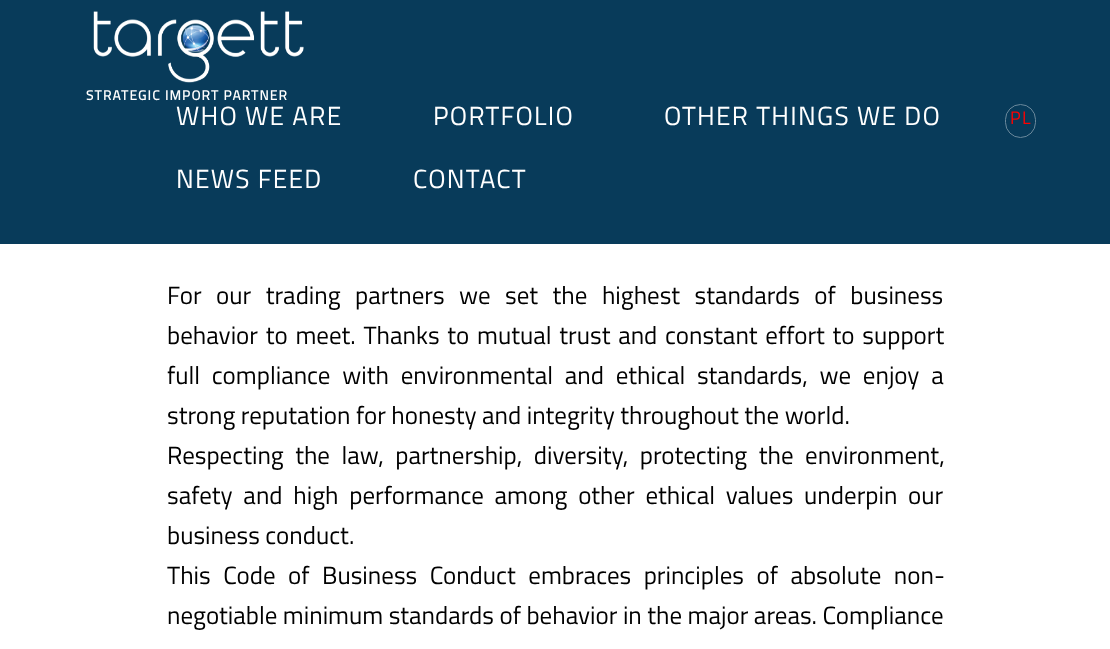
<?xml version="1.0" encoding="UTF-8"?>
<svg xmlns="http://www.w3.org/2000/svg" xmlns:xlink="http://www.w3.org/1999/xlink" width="1110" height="649">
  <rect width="100%" height="100%" fill="#ffffff" />
  <rect width="1110" height="244" fill="#083b5a" />
  <image x="93" y="11" width="211" height="72" xlink:href="image1.png" />
  <rect x="1005.5" y="104.5" width="30" height="33" rx="15" fill="none" stroke="#6b899c" />
  <text x="86" y="100" style="font-family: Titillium; font-size: 13.5px; font-weight: bold; letter-spacing: 1.25px; fill: #ffffff">STRATEGIC IMPORT PARTNER</text>
  <text x="176" y="125" style="font-family: Titillium; font-size: 26.25px; letter-spacing: 1.25px; fill: #ffffff">WHO WE ARE</text>
  <text x="433" y="125" style="font-family: Titillium; font-size: 26.25px; letter-spacing: 1.25px; fill: #ffffff">PORTFOLIO</text>
  <text x="664" y="125" style="font-family: Titillium; font-size: 26.25px; letter-spacing: 1.25px; fill: #ffffff">OTHER THINGS WE DO</text>
  <text x="176" y="188" style="font-family: Titillium; font-size: 26.25px; letter-spacing: 1.25px; fill: #ffffff">NEWS FEED</text>
  <text x="413" y="188" style="font-family: Titillium; font-size: 26.25px; letter-spacing: 1.25px; fill: #ffffff">CONTACT</text>
  <text x="1010" y="124" style="font-family: Titillium; font-size: 18px; letter-spacing: 1.25px; fill: #ff0000">PL</text>
  <text x="167" y="304" word-spacing="9" style="font-family: Titillium; font-size: 25px; fill: #000000">For our trading partners we set the highest standards of business</text>
  <text x="167" y="344" word-spacing="2.25" style="font-family: Titillium; font-size: 25px; fill: #000000">behavior to meet. Thanks to mutual trust and constant effort to support</text>
  <text x="167" y="384" word-spacing="6.25" style="font-family: Titillium; font-size: 25px; fill: #000000">full compliance with environmental and ethical standards, we enjoy a</text>
  <text x="167" y="424" style="font-family: Titillium; font-size: 25px; fill: #000000">strong reputation for honesty and integrity throughout the world.</text>
  <text x="167" y="464" word-spacing="6" style="font-family: Titillium; font-size: 25px; fill: #000000">Respecting the law, partnership, diversity, protecting the environment,</text>
  <text x="167" y="504" word-spacing="5.25" style="font-family: Titillium; font-size: 25px; fill: #000000">safety and high performance among other ethical values underpin our</text>
  <text x="167" y="544" style="font-family: Titillium; font-size: 25px; fill: #000000">business conduct.</text>
  <text x="167" y="584" word-spacing="7" style="font-family: Titillium; font-size: 25px; fill: #000000">This Code of Business Conduct embraces principles of absolute non-</text>
  <text x="167" y="624" style="font-family: Titillium; font-size: 25px; fill: #000000">negotiable minimum standards of behavior in the major areas. Compliance</text>
</svg>
